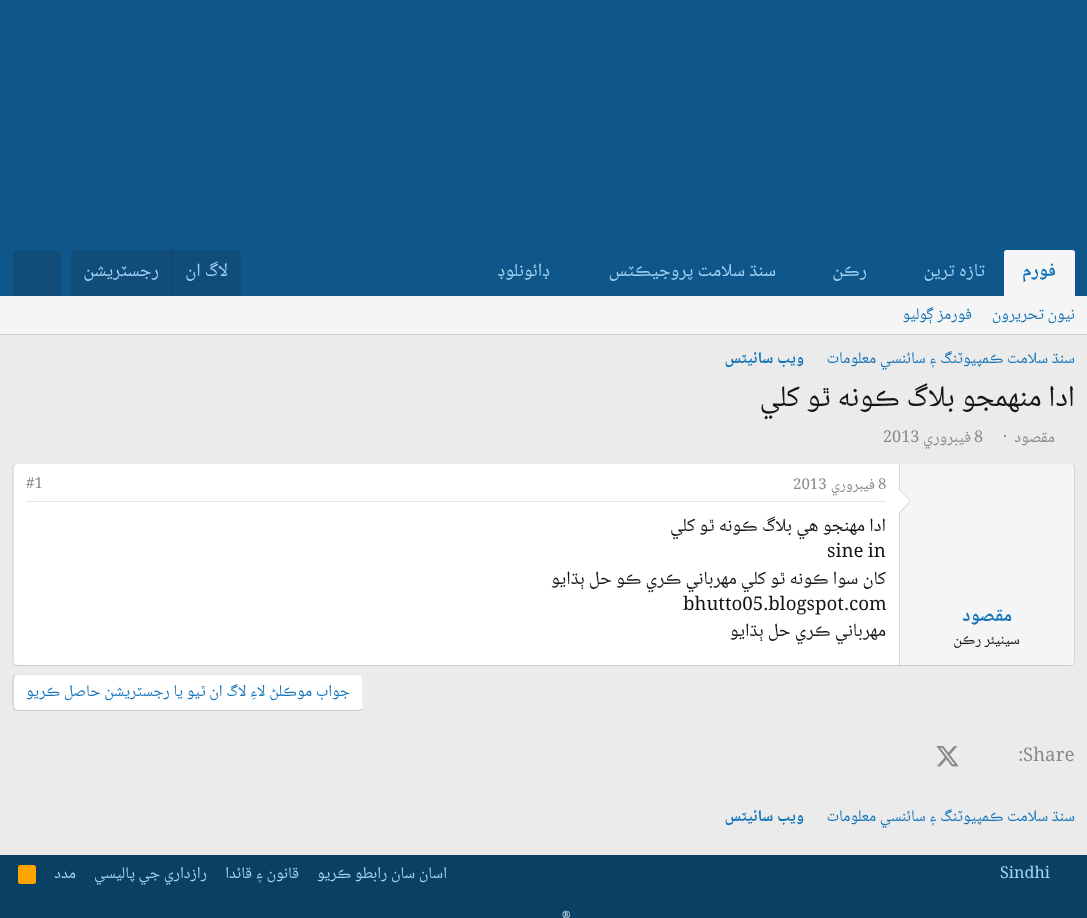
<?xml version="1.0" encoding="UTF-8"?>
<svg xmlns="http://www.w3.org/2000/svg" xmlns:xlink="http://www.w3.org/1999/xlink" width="1087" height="918">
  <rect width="100%" height="100%" fill="#ebebeb" />
  <rect width="1087" height="296" fill="#0f578a" />
  <path d="M 1006.5 250 h 66 c 1.5 0 2.5 1 2.5 2.5 v 43.5 h -71 v -43.5 c 0 -1.5 1 -2.5 2.5 -2.5 z" fill="#f5f5f5" />
  <path d="M 76 250 h 160 c 3 0 5 2 5 5 v 41 h -170 v -41 c 0 -3 2 -5 5 -5 z" fill="#104d78" />
  <rect x="171" y="250" width="1" height="46" fill="#114469" />
  <path d="M 18 250 h 38 c 3 0 5 2 5 5 v 41 h -48 v -41 c 0 -3 2 -5 5 -5 z" fill="#104d78" />
  <rect y="296" width="1087" height="38" fill="#f5f5f5" />
  <rect y="334" width="1087" height="1" fill="#cccccc" />
  <rect x="13" y="463" width="1062" height="203" rx="5" fill="#ffffff" />
  <path d="M 14.5 464.5 l 3 -1.5 h 1052.5 l 3 1.5" fill="none" stroke="#e0e0e0" stroke-width="1.2" />
  <path d="M 1073 464.5 c 1 0.5 1.5 2 1.5 3 v 193.5 c 0 1.5 -0.5 2.5 -1.5 3.5" fill="none" stroke="#d6d6d6" stroke-width="1.2" />
  <path d="M 1073 664.5 l -3 1 h -1052.5 l -3 -1" fill="none" stroke="#cccccc" stroke-width="1.2" />
  <path d="M 14.5 664.5 c -1 -1 -1.5 -2 -1.5 -3.5 v -193.5 c 0 -1 0.5 -2.5 1.5 -3" fill="none" stroke="#d6d6d6" stroke-width="1.2" />
  <path d="M 899 464 h 171 c 2 0 4 2 4 4 v 193 c 0 2 -2 4 -4 4 h -171 z" fill="#f5f5f5" />
  <rect x="899" y="464" width="1" height="201" fill="#d6d6d6" />
  <path d="M 899 514 v -25 l 12 12 z" fill="#d6d6d6" />
  <path d="M 899 512.5 v -22.5 l 11 11 z" fill="#ffffff" />
  <rect x="26" y="501" width="860" height="1" fill="#e5e5e5" />
  <rect x="13" y="674" width="351" height="37" rx="5" fill="#ffffff" />
  <path d="M 14.5 675.5 l 3 -1 h 342 c 4.5 1 3.5 5.5 3.5 9 v 18 c 0 2.5 1 6 -1 8" fill="none" stroke="#e3e3e3" stroke-width="1.2" />
  <path d="M 362 709.5 l -3 1 h -342.5 c -4 -1 -3.5 -5.5 -3.5 -9 v -18 c 0 -2.5 -0.5 -6 1.5 -8" fill="none" stroke="#c9c9c9" stroke-width="1.2" />
  <image x="936" y="746" width="23" height="21" xlink:href="image1.png" />
  <rect y="855" width="1087" height="63" fill="#0b4065" />
  <rect x="18" y="865" width="18" height="19" rx="2.5" fill="#ffa500" />
  <text x="1056" y="276" style="font-family: Noto Naskh Arabic; font-size: 18.75px; font-weight: bold; direction: rtl; fill: #1474b8">فورم</text>
  <text x="985" y="276" style="font-family: Noto Naskh Arabic; font-size: 18.75px; direction: rtl; fill: #a3d4f5">تازہ ترين</text>
  <text x="867" y="276" style="font-family: Noto Naskh Arabic; font-size: 18.75px; direction: rtl; fill: #a3d4f5">رڪن</text>
  <text x="776" y="276" style="font-family: Noto Naskh Arabic; font-size: 18.75px; direction: rtl; fill: #a3d4f5">سنڌ سلامت پروجيڪٽس</text>
  <text x="550" y="276" style="font-family: Noto Naskh Arabic; font-size: 18.75px; direction: rtl; fill: #a3d4f5">ڊائونلوڊ</text>
  <text x="228" y="276" style="font-family: Noto Naskh Arabic; font-size: 18.75px; direction: rtl; fill: #a3d4f5">لاگ ان</text>
  <text x="159" y="276" style="font-family: Noto Naskh Arabic; font-size: 18.75px; direction: rtl; fill: #a3d4f5">رجسٽريشن</text>
  <text x="1075" y="319" style="font-family: Noto Naskh Arabic; font-size: 16.25px; direction: rtl; fill: #1474b8">نيون تحريرون</text>
  <text x="972" y="319" style="font-family: Noto Naskh Arabic; font-size: 16.25px; direction: rtl; fill: #1474b8">فورمز ڳوليو</text>
  <text x="1075" y="363" style="font-family: Noto Naskh Arabic; font-size: 16.25px; direction: rtl; fill: #1474b8">سنڌ سلامت ڪمپيوٽنگ ۽ سائنسي معلومات</text>
  <text x="804" y="363" style="font-family: Noto Naskh Arabic; font-size: 16.25px; font-weight: bold; direction: rtl; fill: #1474b8">ويب سائيٽس</text>
  <text x="1075" y="406" style="font-family: Noto Naskh Arabic; font-size: 30px; direction: rtl; fill: #141414">ادا منهمجو بلاگ ڪونه ٿو کلي</text>
  <text x="1055" y="442" style="font-family: Noto Naskh Arabic; font-size: 16.25px; direction: rtl; fill: #8a8a8a">مقصود</text>
  <text x="1003" y="442" style="font-family: Noto Naskh Arabic; font-size: 16.25px; fill: #8a8a8a">·</text>
  <text x="974" y="442" style="font-family: Noto Naskh Arabic; font-size: 16.25px; fill: #8a8a8a">8</text>
  <text x="971" y="442" style="font-family: Noto Naskh Arabic; font-size: 16.25px; direction: rtl; fill: #8a8a8a">فيبروري</text>
  <text x="883" y="442" style="font-family: Noto Naskh Arabic; font-size: 16.25px; fill: #8a8a8a">2013</text>
  <text x="1012" y="621" style="font-family: Noto Naskh Arabic; font-size: 18.75px; font-weight: bold; direction: rtl; fill: #1474b8">مقصود</text>
  <text x="1020" y="644" style="font-family: Noto Naskh Arabic; font-size: 15px; direction: rtl; fill: #141414">سينيئر رڪن</text>
  <text x="878" y="489" style="font-family: Noto Naskh Arabic; font-size: 15px; fill: #8a8a8a">8</text>
  <text x="875" y="489" style="font-family: Noto Naskh Arabic; font-size: 15px; direction: rtl; fill: #8a8a8a">فيبروري</text>
  <text x="793" y="489" style="font-family: Noto Naskh Arabic; font-size: 15px; fill: #8a8a8a">2013</text>
  <text x="26" y="488" style="font-family: Noto Naskh Arabic; font-size: 15px; fill: #8a8a8a">#1</text>
  <text x="886" y="531" style="font-family: Noto Naskh Arabic; font-size: 18.75px; direction: rtl; fill: #141414">ادا مهنجو هي بلاگ ڪونه ٿو کلي</text>
  <text x="827" y="557" style="font-family: Noto Naskh Arabic; font-size: 18.75px; fill: #141414">sine in</text>
  <text x="886" y="584" style="font-family: Noto Naskh Arabic; font-size: 18.75px; direction: rtl; fill: #141414">کان سوا ڪونه ٿو کلي مهرباني ڪري ڪو حل ٻڌايو</text>
  <text x="683" y="610" style="font-family: Noto Naskh Arabic; font-size: 18.75px; fill: #141414">bhutto05.blogspot.com</text>
  <text x="886" y="636" style="font-family: Noto Naskh Arabic; font-size: 18.75px; direction: rtl; fill: #141414">مهرباني ڪري حل ٻڌايو</text>
  <text x="350" y="696" style="font-family: Noto Naskh Arabic; font-size: 16.25px; direction: rtl; fill: #1474b8">جواب موڪلڻ لاءِ لاگ ان ٿيو يا رجسٽريشن حاصل ڪريو</text>
  <text x="1023" y="761" style="font-family: Noto Naskh Arabic; font-size: 18.75px; fill: #8a8a8a">Share</text>
  <text x="1018" y="761" style="font-family: Noto Naskh Arabic; font-size: 18.75px; fill: #8a8a8a">:</text>
  <text x="1075" y="821" style="font-family: Noto Naskh Arabic; font-size: 16.25px; direction: rtl; fill: #1474b8">سنڌ سلامت ڪمپيوٽنگ ۽ سائنسي معلومات</text>
  <text x="804" y="821" style="font-family: Noto Naskh Arabic; font-size: 16.25px; font-weight: bold; direction: rtl; fill: #1474b8">ويب سائيٽس</text>
  <text x="1000" y="878" style="font-family: Noto Naskh Arabic; font-size: 16.25px; fill: #a3d4f5">Sindhi</text>
  <text x="447" y="878" style="font-family: Noto Naskh Arabic; font-size: 16.25px; direction: rtl; fill: #a3d4f5">اسان سان رابطو ڪريو</text>
  <text x="299" y="878" style="font-family: Noto Naskh Arabic; font-size: 16.25px; direction: rtl; fill: #a3d4f5">قانون ۽ قائدا</text>
  <text x="207" y="878" style="font-family: Noto Naskh Arabic; font-size: 16.25px; direction: rtl; fill: #a3d4f5">رازداري جي پاليسي</text>
  <text x="76" y="878" style="font-family: Noto Naskh Arabic; font-size: 16.25px; direction: rtl; fill: #a3d4f5">مدد</text>
  <text x="562" y="918" style="font-family: Noto Naskh Arabic; font-size: 10px; fill: #e8f4fc">®</text>
</svg>
